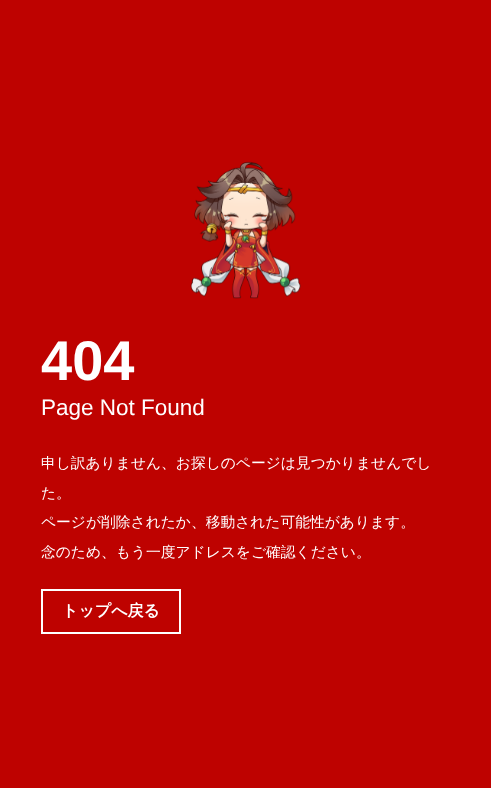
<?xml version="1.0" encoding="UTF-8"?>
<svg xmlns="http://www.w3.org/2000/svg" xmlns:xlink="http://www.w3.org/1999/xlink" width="491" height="788">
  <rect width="100%" height="100%" fill="#be0200" />
  <image x="190" y="161" width="111" height="138" xlink:href="image1.png" />
  <rect x="42" y="590" width="138" height="43" fill="none" stroke="#ffffff" stroke-width="2" />
  <text x="41" y="380" style="font-family: Liberation Sans; font-size: 56px; font-weight: bold; fill: #ffffff">404</text>
  <text x="41" y="415" style="font-family: Liberation Sans; font-size: 22.5px; fill: #ffffff">Page Not Found</text>
  <text x="41" y="468" style="font-family: WenQuanYi Zen Hei; font-size: 14.75px; font-weight: 500; fill: #ffffff">申し訳ありません、お探しのページは見つかりませんでし</text>
  <text x="41" y="498" style="font-family: WenQuanYi Zen Hei; font-size: 14.75px; font-weight: 500; fill: #ffffff">た。</text>
  <text x="41" y="527" style="font-family: WenQuanYi Zen Hei; font-size: 14.75px; font-weight: 500; fill: #ffffff">ページが削除されたか、移動された可能性があります。</text>
  <text x="41" y="557" style="font-family: WenQuanYi Zen Hei; font-size: 14.75px; font-weight: 500; fill: #ffffff">念のため、もう一度アドレスをご確認ください。</text>
  <text x="62" y="616" style="font-family: WenQuanYi Zen Hei; font-size: 16px; font-weight: bold; fill: #ffffff">トップへ戻る</text>
</svg>
